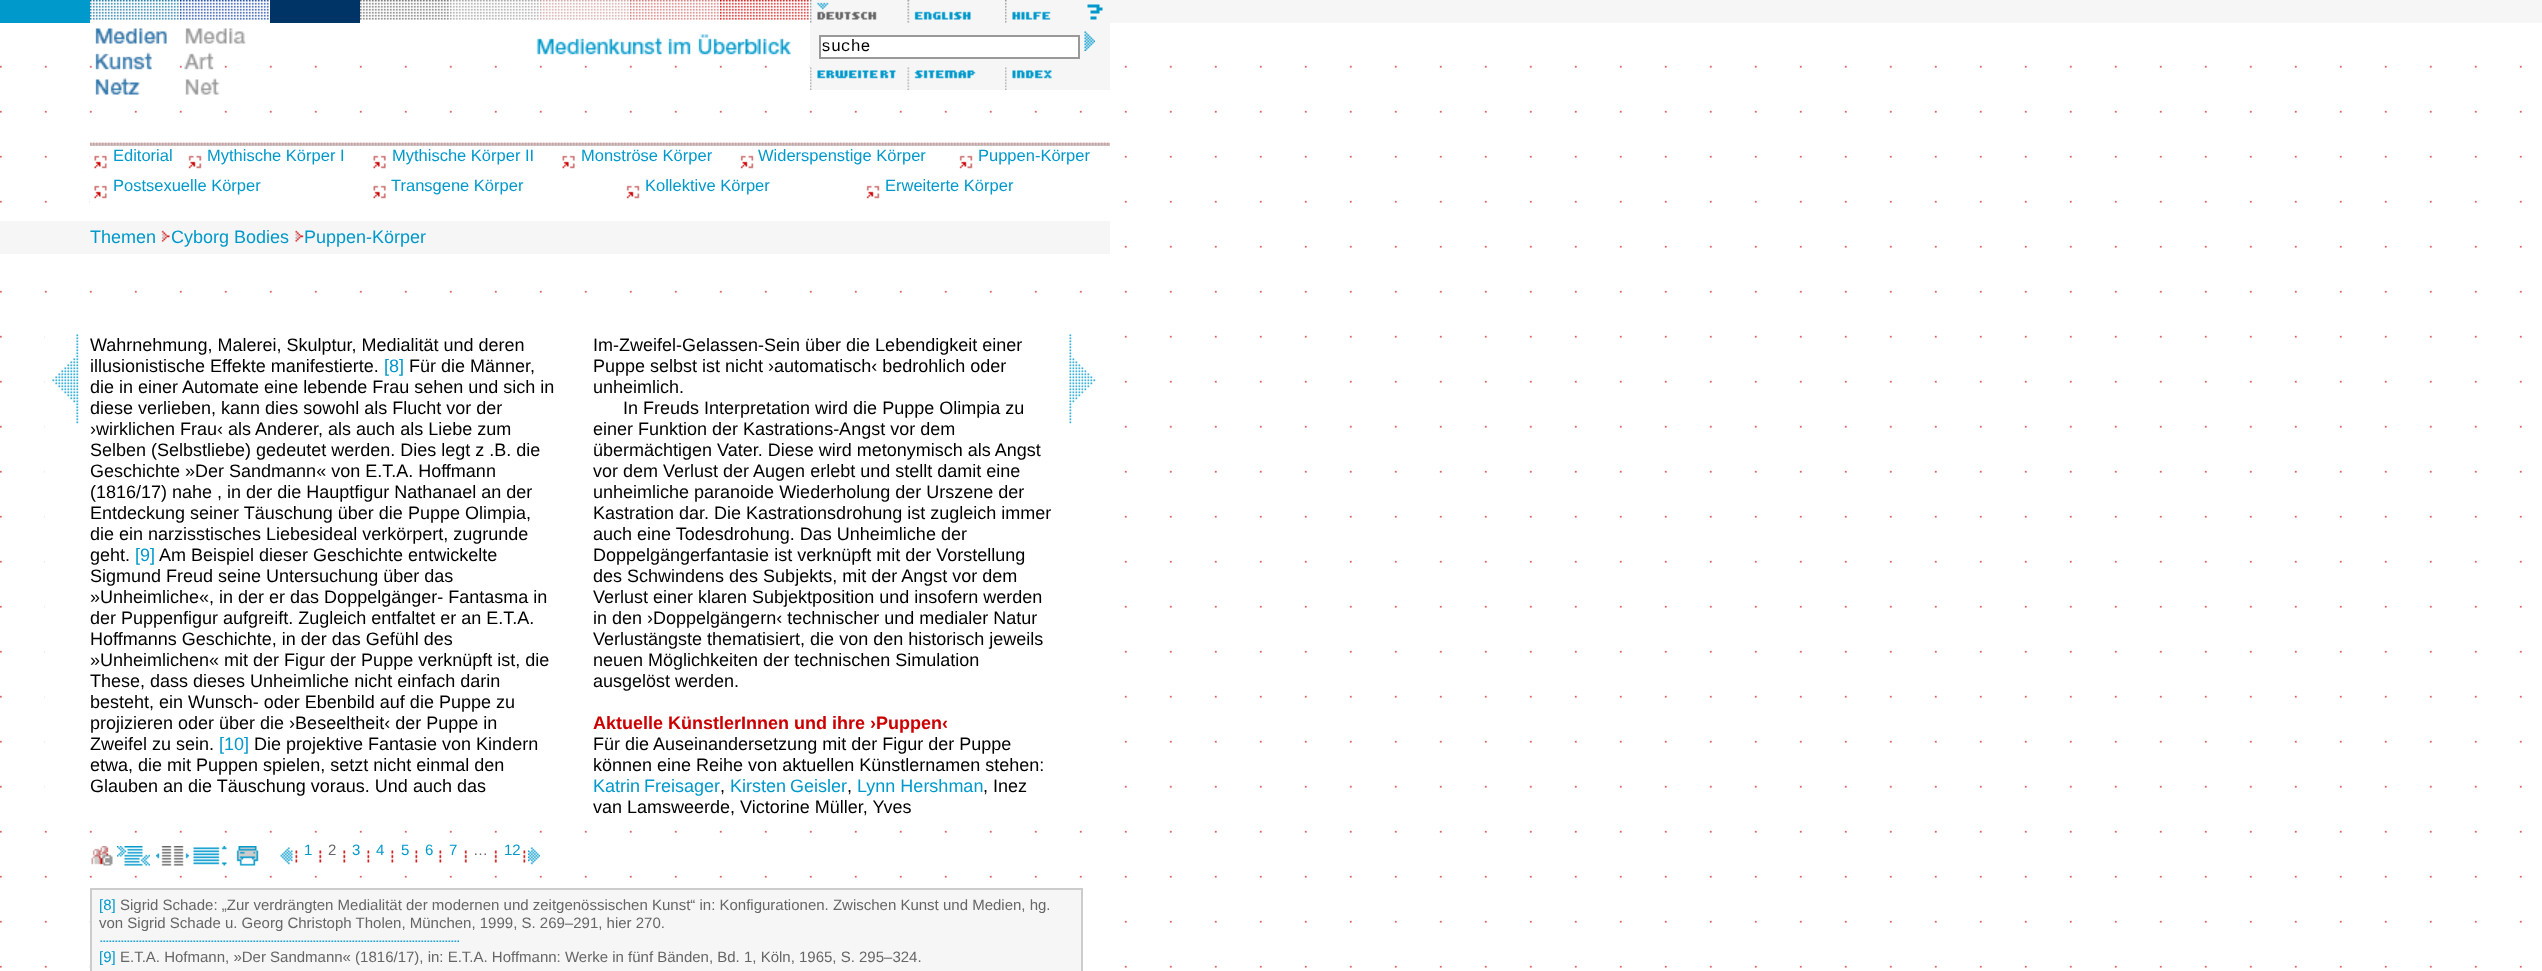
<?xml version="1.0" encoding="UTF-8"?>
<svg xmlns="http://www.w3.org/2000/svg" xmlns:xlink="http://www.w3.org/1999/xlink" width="2542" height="971">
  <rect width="100%" height="100%" fill="#ffffff" />
  <image x="0" y="65" width="2522" height="903" xlink:href="image1.png" />
  <rect x="810" width="1732" height="23" fill="#f6f6f6" />
  <rect width="90" height="23" fill="#0099cc" />
  <image x="90" y="0" width="89" height="20" xlink:href="image2.png" />
  <image x="180" y="0" width="89" height="20" xlink:href="image3.png" />
  <rect x="270" width="90" height="23" fill="#003366" />
  <image x="360" y="0" width="89" height="20" xlink:href="image4.png" />
  <image x="450" y="0" width="89" height="20" xlink:href="image5.png" />
  <image x="540" y="0" width="89" height="20" xlink:href="image6.png" />
  <image x="630" y="0" width="89" height="20" xlink:href="image7.png" />
  <image x="720" y="0" width="89" height="20" xlink:href="image8.png" />
  <image x="810" y="0" width="67" height="23" xlink:href="image9.png" />
  <image x="907" y="0" width="64" height="23" xlink:href="image10.png" />
  <image x="1005" y="0" width="98" height="23" xlink:href="image11.png" />
  <image x="95" y="28" width="72" height="67" xlink:href="image12.png" />
  <image x="184" y="28" width="62" height="67" xlink:href="image13.png" />
  <image x="536" y="34" width="255" height="21" xlink:href="image14.png" />
  <rect x="810" y="23" width="300" height="67" fill="#f6f6f6" />
  <rect x="820" y="36" width="259" height="22" fill="#ffffff" stroke="#999999" stroke-width="2" />
  <image x="1084" y="31" width="11" height="20" xlink:href="image15.png" />
  <image x="810" y="67" width="86" height="23" xlink:href="image16.png" />
  <image x="907" y="67" width="69" height="23" xlink:href="image17.png" />
  <image x="1005" y="67" width="47" height="23" xlink:href="image18.png" />
  <rect x="90" y="155" width="992" height="48" fill="#ffffff" />
  <rect x="90" y="143" width="1020" height="3" fill="#cccccc" />
  <image x="90" y="142" width="1020" height="4" xlink:href="image19.png" />
  <image x="94" y="155" width="13" height="14" xlink:href="image20.png" />
  <image x="188" y="155" width="14" height="14" xlink:href="image21.png" />
  <image x="373" y="155" width="13" height="14" xlink:href="image22.png" />
  <image x="562" y="155" width="13" height="14" xlink:href="image22.png" />
  <image x="740" y="155" width="14" height="14" xlink:href="image23.png" />
  <image x="959" y="155" width="14" height="14" xlink:href="image21.png" />
  <image x="94" y="185" width="13" height="14" xlink:href="image20.png" />
  <image x="373" y="185" width="13" height="14" xlink:href="image22.png" />
  <image x="626" y="185" width="14" height="14" xlink:href="image23.png" />
  <image x="866" y="185" width="14" height="14" xlink:href="image21.png" />
  <rect y="221" width="1110" height="33" fill="#f6f6f6" />
  <image x="161" y="230" width="9" height="12" xlink:href="image24.png" />
  <image x="295" y="230" width="9" height="12" xlink:href="image25.png" />
  <rect x="45" y="335" width="1037" height="453" fill="#ffffff" />
  <image x="52" y="334" width="27" height="90" xlink:href="image26.png" />
  <image x="1069" y="334" width="27" height="90" xlink:href="image27.png" />
  <image x="91" y="846" width="22" height="20" xlink:href="image28.png" />
  <image x="117" y="846" width="33" height="20" xlink:href="image29.png" />
  <image x="156" y="846" width="33" height="20" xlink:href="image30.png" />
  <image x="193" y="846" width="34" height="20" xlink:href="image31.png" />
  <image x="236" y="846" width="23" height="20" xlink:href="image32.png" />
  <image x="280" y="847" width="13" height="18" xlink:href="image33.png" />
  <image x="295" y="850" width="3" height="13" xlink:href="image34.png" />
  <image x="319" y="850" width="3" height="13" xlink:href="image35.png" />
  <image x="343" y="850" width="3" height="13" xlink:href="image35.png" />
  <image x="367" y="850" width="3" height="13" xlink:href="image34.png" />
  <image x="391" y="850" width="3" height="13" xlink:href="image34.png" />
  <image x="415" y="850" width="3" height="13" xlink:href="image34.png" />
  <image x="439" y="850" width="3" height="13" xlink:href="image34.png" />
  <image x="464" y="850" width="3" height="13" xlink:href="image36.png" />
  <image x="494" y="850" width="3" height="13" xlink:href="image36.png" />
  <image x="523" y="850" width="3" height="13" xlink:href="image34.png" />
  <image x="528" y="847" width="12" height="18" xlink:href="image37.png" />
  <rect x="91" y="889" width="991" height="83" fill="#f6f6f6" stroke="#cccccc" stroke-width="2" />
  <image x="100" y="940" width="359" height="2" xlink:href="image38.png" />
  <text x="821" y="51" style="font-family: Liberation Mono; font-size: 16.5px; fill: #000000">suche</text>
  <text x="113" y="161" style="font-family: Liberation Sans; font-size: 16.5px; fill: #0099cc">Editorial</text>
  <text x="207" y="161" style="font-family: Liberation Sans; font-size: 16.5px; fill: #0099cc">Mythische Körper I</text>
  <text x="392" y="161" style="font-family: Liberation Sans; font-size: 16.5px; fill: #0099cc">Mythische Körper II</text>
  <text x="581" y="161" style="font-family: Liberation Sans; font-size: 16.5px; fill: #0099cc">Monströse Körper</text>
  <text x="758" y="161" style="font-family: Liberation Sans; font-size: 16.5px; fill: #0099cc">Widerspenstige Körper</text>
  <text x="978" y="161" style="font-family: Liberation Sans; font-size: 16.5px; fill: #0099cc">Puppen-Körper</text>
  <text x="113" y="191" style="font-family: Liberation Sans; font-size: 16.5px; fill: #0099cc">Postsexuelle Körper</text>
  <text x="391" y="191" style="font-family: Liberation Sans; font-size: 16.5px; fill: #0099cc">Transgene Körper</text>
  <text x="645" y="191" style="font-family: Liberation Sans; font-size: 16.5px; fill: #0099cc">Kollektive Körper</text>
  <text x="885" y="191" style="font-family: Liberation Sans; font-size: 16.5px; fill: #0099cc">Erweiterte Körper</text>
  <text x="90" y="243" style="font-family: Liberation Sans; font-size: 18px; fill: #0099cc">Themen</text>
  <text x="171" y="243" style="font-family: Liberation Sans; font-size: 18px; fill: #0099cc">Cyborg Bodies</text>
  <text x="304" y="243" style="font-family: Liberation Sans; font-size: 18px; fill: #0099cc">Puppen-Körper</text>
  <text x="90" y="351" style="font-family: Liberation Sans; font-size: 18px; fill: #000000">Wahrnehmung, Malerei, Skulptur, Medialität und deren</text>
  <text x="90" y="372" style="font-family: Liberation Sans; font-size: 18px; fill: #000000">illusionistische Effekte manifestierte.</text>
  <text x="384" y="372" style="font-family: Liberation Sans; font-size: 18px; fill: #0099cc">[8]</text>
  <text x="409" y="372" style="font-family: Liberation Sans; font-size: 18px; fill: #000000">Für die Männer,</text>
  <text x="90" y="393" style="font-family: Liberation Sans; font-size: 18px; fill: #000000">die in einer Automate eine lebende Frau sehen und sich in</text>
  <text x="90" y="414" style="font-family: Liberation Sans; font-size: 18px; fill: #000000">diese verlieben, kann dies sowohl als Flucht vor der</text>
  <text x="90" y="435" style="font-family: Liberation Sans; font-size: 18px; fill: #000000">›wirklichen Frau‹ als Anderer, als auch als Liebe zum</text>
  <text x="90" y="456" style="font-family: Liberation Sans; font-size: 18px; fill: #000000">Selben (Selbstliebe) gedeutet werden. Dies legt z .B. die</text>
  <text x="90" y="477" style="font-family: Liberation Sans; font-size: 18px; fill: #000000">Geschichte »Der Sandmann« von E.T.A. Hoffmann</text>
  <text x="90" y="498" style="font-family: Liberation Sans; font-size: 18px; fill: #000000">(1816/17) nahe , in der die Hauptfigur Nathanael an der</text>
  <text x="90" y="519" style="font-family: Liberation Sans; font-size: 18px; fill: #000000">Entdeckung seiner Täuschung über die Puppe Olimpia,</text>
  <text x="90" y="540" style="font-family: Liberation Sans; font-size: 18px; fill: #000000">die ein narzisstisches Liebesideal verkörpert, zugrunde</text>
  <text x="90" y="561" style="font-family: Liberation Sans; font-size: 18px; fill: #000000">geht.</text>
  <text x="135" y="561" style="font-family: Liberation Sans; font-size: 18px; fill: #0099cc">[9]</text>
  <text x="159" y="561" style="font-family: Liberation Sans; font-size: 18px; fill: #000000">Am Beispiel dieser Geschichte entwickelte</text>
  <text x="90" y="582" style="font-family: Liberation Sans; font-size: 18px; fill: #000000">Sigmund Freud seine Untersuchung über das</text>
  <text x="90" y="603" style="font-family: Liberation Sans; font-size: 18px; fill: #000000">»Unheimliche«, in der er das Doppelgänger- Fantasma in</text>
  <text x="90" y="624" style="font-family: Liberation Sans; font-size: 18px; fill: #000000">der Puppenfigur aufgreift. Zugleich entfaltet er an E.T.A.</text>
  <text x="90" y="645" style="font-family: Liberation Sans; font-size: 18px; fill: #000000">Hoffmanns Geschichte, in der das Gefühl des</text>
  <text x="90" y="666" style="font-family: Liberation Sans; font-size: 18px; fill: #000000">»Unheimlichen« mit der Figur der Puppe verknüpft ist, die</text>
  <text x="90" y="687" style="font-family: Liberation Sans; font-size: 18px; fill: #000000">These, dass dieses Unheimliche nicht einfach darin</text>
  <text x="90" y="708" style="font-family: Liberation Sans; font-size: 18px; fill: #000000">besteht, ein Wunsch- oder Ebenbild auf die Puppe zu</text>
  <text x="90" y="729" style="font-family: Liberation Sans; font-size: 18px; fill: #000000">projizieren oder über die ›Beseeltheit‹ der Puppe in</text>
  <text x="90" y="750" style="font-family: Liberation Sans; font-size: 18px; fill: #000000">Zweifel zu sein.</text>
  <text x="219" y="750" style="font-family: Liberation Sans; font-size: 18px; fill: #0099cc">[10]</text>
  <text x="254" y="750" style="font-family: Liberation Sans; font-size: 18px; fill: #000000">Die projektive Fantasie von Kindern</text>
  <text x="90" y="771" style="font-family: Liberation Sans; font-size: 18px; fill: #000000">etwa, die mit Puppen spielen, setzt nicht einmal den</text>
  <text x="90" y="792" style="font-family: Liberation Sans; font-size: 18px; fill: #000000">Glauben an die Täuschung voraus. Und auch das</text>
  <text x="593" y="351" style="font-family: Liberation Sans; font-size: 18px; fill: #000000">Im-Zweifel-Gelassen-Sein über die Lebendigkeit einer</text>
  <text x="593" y="372" style="font-family: Liberation Sans; font-size: 18px; fill: #000000">Puppe selbst ist nicht ›automatisch‹ bedrohlich oder</text>
  <text x="593" y="393" style="font-family: Liberation Sans; font-size: 18px; fill: #000000">unheimlich.</text>
  <text x="623" y="414" style="font-family: Liberation Sans; font-size: 18px; fill: #000000">In Freuds Interpretation wird die Puppe Olimpia zu</text>
  <text x="593" y="435" style="font-family: Liberation Sans; font-size: 18px; fill: #000000">einer Funktion der Kastrations-Angst vor dem</text>
  <text x="593" y="456" style="font-family: Liberation Sans; font-size: 18px; fill: #000000">übermächtigen Vater. Diese wird metonymisch als Angst</text>
  <text x="593" y="477" style="font-family: Liberation Sans; font-size: 18px; fill: #000000">vor dem Verlust der Augen erlebt und stellt damit eine</text>
  <text x="593" y="498" style="font-family: Liberation Sans; font-size: 18px; fill: #000000">unheimliche paranoide Wiederholung der Urszene der</text>
  <text x="593" y="519" style="font-family: Liberation Sans; font-size: 18px; fill: #000000">Kastration dar. Die Kastrationsdrohung ist zugleich immer</text>
  <text x="593" y="540" style="font-family: Liberation Sans; font-size: 18px; fill: #000000">auch eine Todesdrohung. Das Unheimliche der</text>
  <text x="593" y="561" style="font-family: Liberation Sans; font-size: 18px; fill: #000000">Doppelgängerfantasie ist verknüpft mit der Vorstellung</text>
  <text x="593" y="582" style="font-family: Liberation Sans; font-size: 18px; fill: #000000">des Schwindens des Subjekts, mit der Angst vor dem</text>
  <text x="593" y="603" style="font-family: Liberation Sans; font-size: 18px; fill: #000000">Verlust einer klaren Subjektposition und insofern werden</text>
  <text x="593" y="624" style="font-family: Liberation Sans; font-size: 18px; fill: #000000">in den ›Doppelgängern‹ technischer und medialer Natur</text>
  <text x="593" y="645" style="font-family: Liberation Sans; font-size: 18px; fill: #000000">Verlustängste thematisiert, die von den historisch jeweils</text>
  <text x="593" y="666" style="font-family: Liberation Sans; font-size: 18px; fill: #000000">neuen Möglichkeiten der technischen Simulation</text>
  <text x="593" y="687" style="font-family: Liberation Sans; font-size: 18px; fill: #000000">ausgelöst werden.</text>
  <text x="593" y="729" style="font-family: Liberation Sans; font-size: 18px; font-weight: bold; fill: #cc0000">Aktuelle KünstlerInnen und ihre ›Puppen‹</text>
  <text x="593" y="750" style="font-family: Liberation Sans; font-size: 18px; fill: #000000">Für die Auseinandersetzung mit der Figur der Puppe</text>
  <text x="593" y="771" style="font-family: Liberation Sans; font-size: 18px; fill: #000000">können eine Reihe von aktuellen Künstlernamen stehen:</text>
  <text x="593" y="792" word-spacing="-1" style="font-family: Liberation Sans; font-size: 18px; fill: #0099cc">Katrin Freisager</text>
  <text x="720" y="792" style="font-family: Liberation Sans; font-size: 18px; fill: #000000">,</text>
  <text x="730" y="792" word-spacing="-1" style="font-family: Liberation Sans; font-size: 18px; fill: #0099cc">Kirsten Geisler</text>
  <text x="847" y="792" style="font-family: Liberation Sans; font-size: 18px; fill: #000000">,</text>
  <text x="857" y="792" style="font-family: Liberation Sans; font-size: 18px; fill: #0099cc">Lynn Hershman</text>
  <text x="983" y="792" style="font-family: Liberation Sans; font-size: 18px; fill: #000000">, Inez</text>
  <text x="593" y="813" style="font-family: Liberation Sans; font-size: 18px; fill: #000000">van Lamsweerde, Victorine Müller, Yves</text>
  <text x="304" y="855" style="font-family: Liberation Sans; font-size: 15px; fill: #0099cc">1</text>
  <text x="328" y="855" style="font-family: Liberation Sans; font-size: 15px; fill: #666666">2</text>
  <text x="352" y="855" style="font-family: Liberation Sans; font-size: 15px; fill: #0099cc">3</text>
  <text x="376" y="855" style="font-family: Liberation Sans; font-size: 15px; fill: #0099cc">4</text>
  <text x="401" y="855" style="font-family: Liberation Sans; font-size: 15px; fill: #0099cc">5</text>
  <text x="425" y="855" style="font-family: Liberation Sans; font-size: 15px; fill: #0099cc">6</text>
  <text x="449" y="855" style="font-family: Liberation Sans; font-size: 15px; fill: #0099cc">7</text>
  <text x="473" y="855" style="font-family: Liberation Sans; font-size: 15px; fill: #666666">…</text>
  <text x="504" y="855" style="font-family: Liberation Sans; font-size: 15px; fill: #0099cc">12</text>
  <text x="99" y="910" style="font-family: Liberation Sans; font-size: 15px; fill: #0099cc">[8]</text>
  <text x="120" y="910" style="font-family: Liberation Sans; font-size: 15px; fill: #666666">Sigrid Schade: „Zur verdrängten Medialität der modernen und zeitgenössischen Kunst“ in: Konfigurationen. Zwischen Kunst und Medien, hg.</text>
  <text x="99" y="928" style="font-family: Liberation Sans; font-size: 15px; fill: #666666">von Sigrid Schade u. Georg Christoph Tholen, München, 1999, S. 269–291, hier 270.</text>
  <text x="99" y="962" style="font-family: Liberation Sans; font-size: 15px; fill: #0099cc">[9]</text>
  <text x="120" y="962" style="font-family: Liberation Sans; font-size: 15px; fill: #666666">E.T.A. Hofmann, »Der Sandmann« (1816/17), in: E.T.A. Hoffmann: Werke in fünf Bänden, Bd. 1, Köln, 1965, S. 295–324.</text>
</svg>
